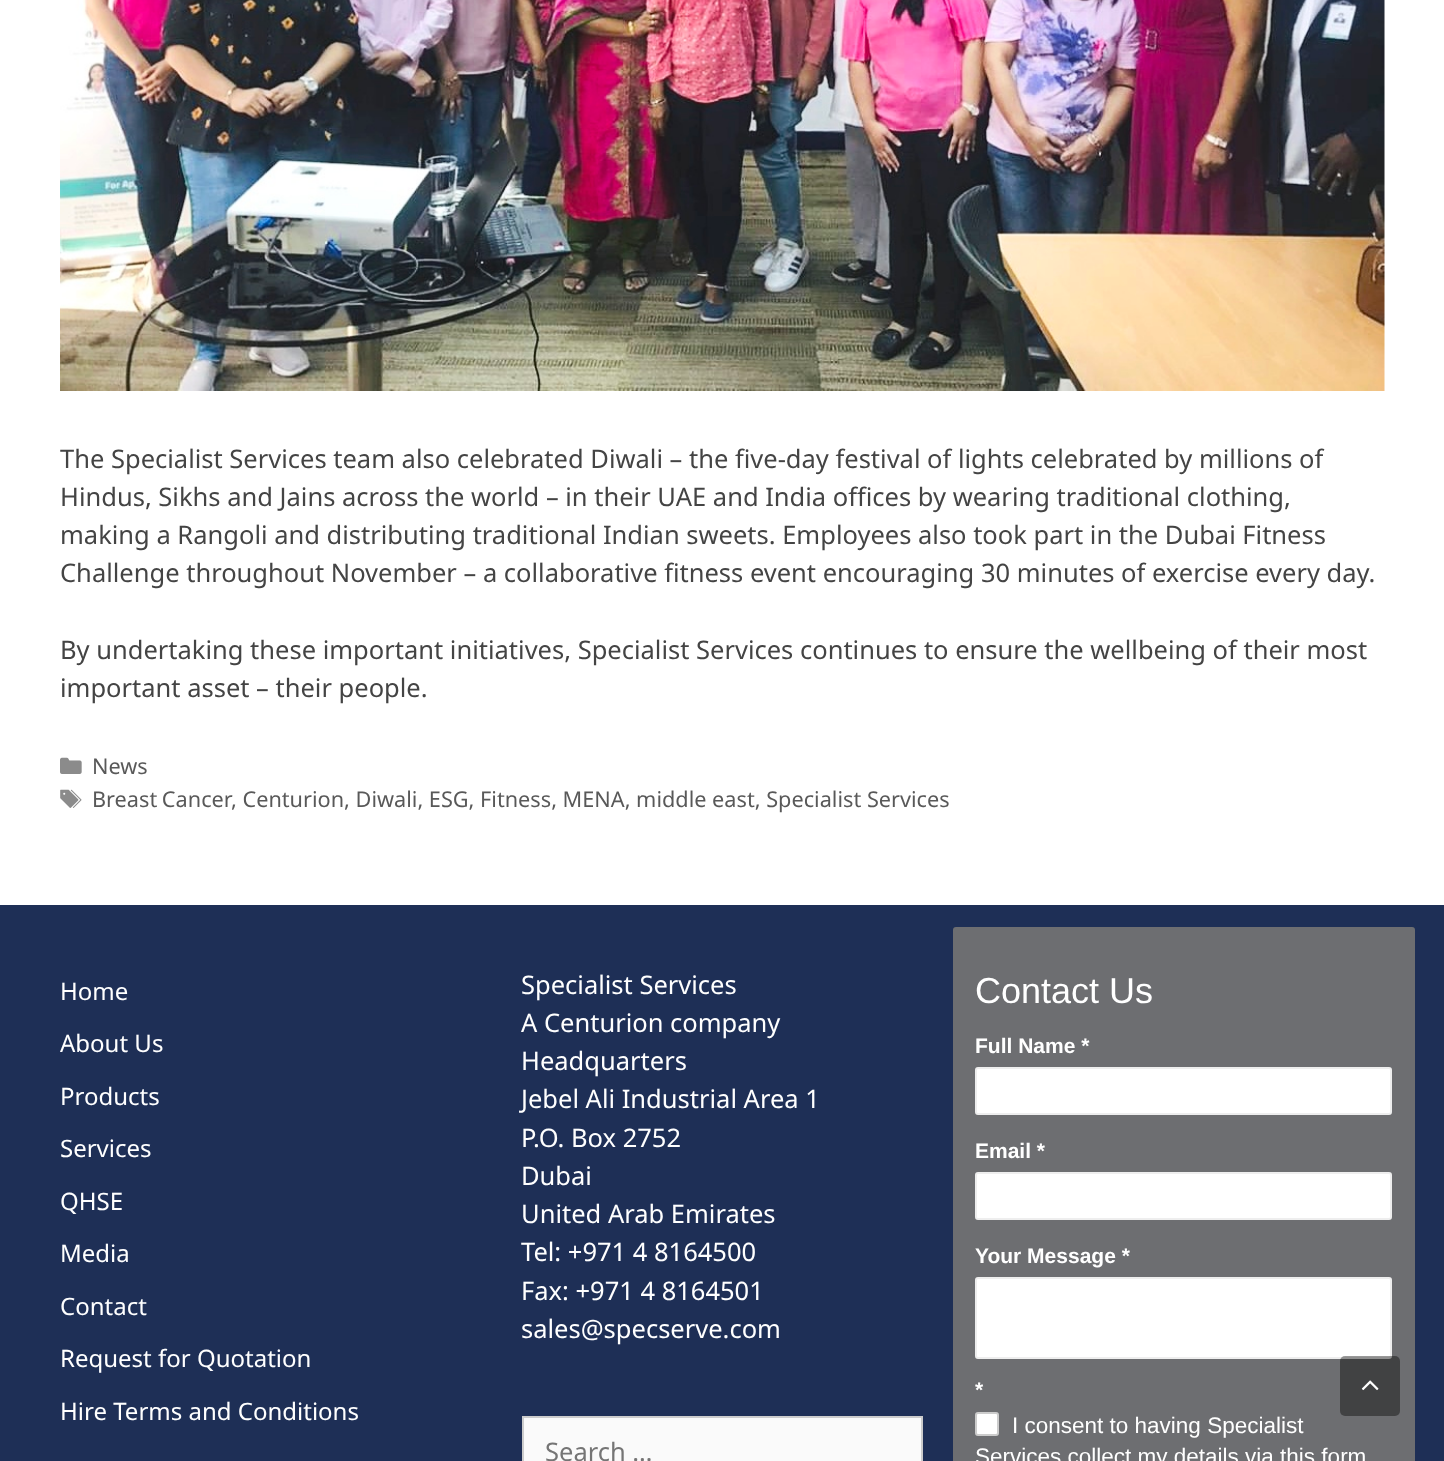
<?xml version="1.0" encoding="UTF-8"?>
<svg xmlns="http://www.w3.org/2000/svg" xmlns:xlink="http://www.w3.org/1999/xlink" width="1444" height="1461">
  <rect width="100%" height="100%" fill="#ffffff" />
  <image x="60" y="0" width="1325" height="391" xlink:href="image1.png" />
  <image x="60" y="757" width="22" height="17" xlink:href="image2.png" />
  <image x="60" y="789" width="22" height="19" xlink:href="image3.png" />
  <rect y="905" width="1444" height="556" fill="#1e2f56" />
  <rect x="523" y="1417" width="399" height="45" fill="#fafafa" stroke="#cccccc" stroke-width="2" />
  <rect x="953" y="927" width="462" height="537" rx="3" fill="#6d6e71" />
  <rect x="976" y="1068" width="415" height="46" rx="2" fill="#ffffff" stroke="#eeeeee" stroke-width="2" />
  <rect x="976" y="1173" width="415" height="46" rx="2" fill="#ffffff" stroke="#eeeeee" stroke-width="2" />
  <rect x="976" y="1278" width="415" height="80" rx="2" fill="#ffffff" stroke="#eeeeee" stroke-width="2" />
  <rect x="976" y="1413" width="22" height="22" rx="2" fill="#ffffff" stroke="#cccccc" stroke-width="2" />
  <rect x="1340" y="1356" width="60" height="60" rx="5" fill="#000000" fill-opacity="0.4" />
  <image x="1361" y="1380" width="18" height="11" xlink:href="image4.png" />
  <text x="60" y="468" style="font-family: Noto Sans; font-size: 25.5px; fill: #444444">The Specialist Services team also celebrated Diwali – the five-day festival of lights celebrated by millions of</text>
  <text x="60" y="506" style="font-family: Noto Sans; font-size: 25.5px; fill: #444444">Hindus, Sikhs and Jains across the world – in their UAE and India offices by wearing traditional clothing,</text>
  <text x="60" y="544" style="font-family: Noto Sans; font-size: 25.5px; fill: #444444">making a Rangoli and distributing traditional Indian sweets. Employees also took part in the Dubai Fitness</text>
  <text x="60" y="582" style="font-family: Noto Sans; font-size: 25.5px; fill: #444444">Challenge throughout November – a collaborative fitness event encouraging 30 minutes of exercise every day.</text>
  <text x="60" y="659" style="font-family: Noto Sans; font-size: 25.5px; fill: #444444">By undertaking these important initiatives, Specialist Services continues to ensure the wellbeing of their most</text>
  <text x="60" y="697" style="font-family: Noto Sans; font-size: 25.5px; fill: #444444">important asset – their people.</text>
  <text x="92" y="774" style="font-family: Noto Sans; font-size: 21.7px; fill: #595959">News</text>
  <text x="92" y="807" word-spacing="-1" style="font-family: Noto Sans; font-size: 21.7px; fill: #595959">Breast Cancer</text>
  <text x="231" y="807" style="font-family: Noto Sans; font-size: 21.7px; fill: #595959">, Centurion, Diwali, ESG, Fitness, MENA, middle east, Specialist Services</text>
  <text x="60" y="1000" style="font-family: Noto Sans; font-size: 24px; fill: #ffffff">Home</text>
  <text x="60" y="1052" style="font-family: Noto Sans; font-size: 24px; fill: #ffffff">About Us</text>
  <text x="60" y="1105" style="font-family: Noto Sans; font-size: 24px; fill: #ffffff">Products</text>
  <text x="60" y="1157" style="font-family: Noto Sans; font-size: 24px; fill: #ffffff">Services</text>
  <text x="60" y="1210" style="font-family: Noto Sans; font-size: 24px; fill: #ffffff">QHSE</text>
  <text x="60" y="1262" style="font-family: Noto Sans; font-size: 24px; fill: #ffffff">Media</text>
  <text x="60" y="1315" style="font-family: Noto Sans; font-size: 24px; fill: #ffffff">Contact</text>
  <text x="60" y="1367" style="font-family: Noto Sans; font-size: 24px; fill: #ffffff">Request for Quotation</text>
  <text x="60" y="1420" style="font-family: Noto Sans; font-size: 24px; fill: #ffffff">Hire Terms and Conditions</text>
  <text x="521" y="994" style="font-family: Noto Sans; font-size: 25.5px; fill: #ffffff">Specialist Services</text>
  <text x="521" y="1032" style="font-family: Noto Sans; font-size: 25.5px; fill: #ffffff">A Centurion company</text>
  <text x="521" y="1070" style="font-family: Noto Sans; font-size: 25.5px; fill: #ffffff">Headquarters</text>
  <text x="521" y="1108" style="font-family: Noto Sans; font-size: 25.5px; fill: #ffffff">Jebel Ali Industrial Area 1</text>
  <text x="521" y="1147" style="font-family: Noto Sans; font-size: 25.5px; fill: #ffffff">P.O. Box 2752</text>
  <text x="521" y="1185" style="font-family: Noto Sans; font-size: 25.5px; fill: #ffffff">Dubai</text>
  <text x="521" y="1223" style="font-family: Noto Sans; font-size: 25.5px; fill: #ffffff">United Arab Emirates</text>
  <text x="521" y="1261" style="font-family: Noto Sans; font-size: 25.5px; fill: #ffffff">Tel: +971 4 8164500</text>
  <text x="521" y="1300" style="font-family: Noto Sans; font-size: 25.5px; fill: #ffffff">Fax: +971 4 8164501</text>
  <text x="521" y="1338" style="font-family: Noto Sans; font-size: 25.5px; fill: #ffffff">sales@specserve.com</text>
  <text x="545" y="1461" style="font-family: Noto Sans; font-size: 25.5px; fill: #757575">Search …</text>
  <text x="975" y="1003" style="font-family: Liberation Sans; font-size: 36px; fill: #ffffff">Contact Us</text>
  <text x="975" y="1053" style="font-family: Liberation Sans; font-size: 21px; font-weight: bold; fill: #ffffff">Full Name *</text>
  <text x="975" y="1158" style="font-family: Liberation Sans; font-size: 21px; font-weight: bold; fill: #ffffff">Email *</text>
  <text x="975" y="1263" style="font-family: Liberation Sans; font-size: 21px; font-weight: bold; fill: #ffffff">Your Message *</text>
  <text x="975" y="1397" style="font-family: Liberation Sans; font-size: 21px; font-weight: bold; fill: #ffffff">*</text>
  <text x="1012" y="1433" style="font-family: Liberation Sans; font-size: 22.5px; fill: #ffffff">I consent to having Specialist</text>
  <text x="975" y="1464" style="font-family: Liberation Sans; font-size: 22.5px; fill: #ffffff">Services collect my details via this form</text>
</svg>
